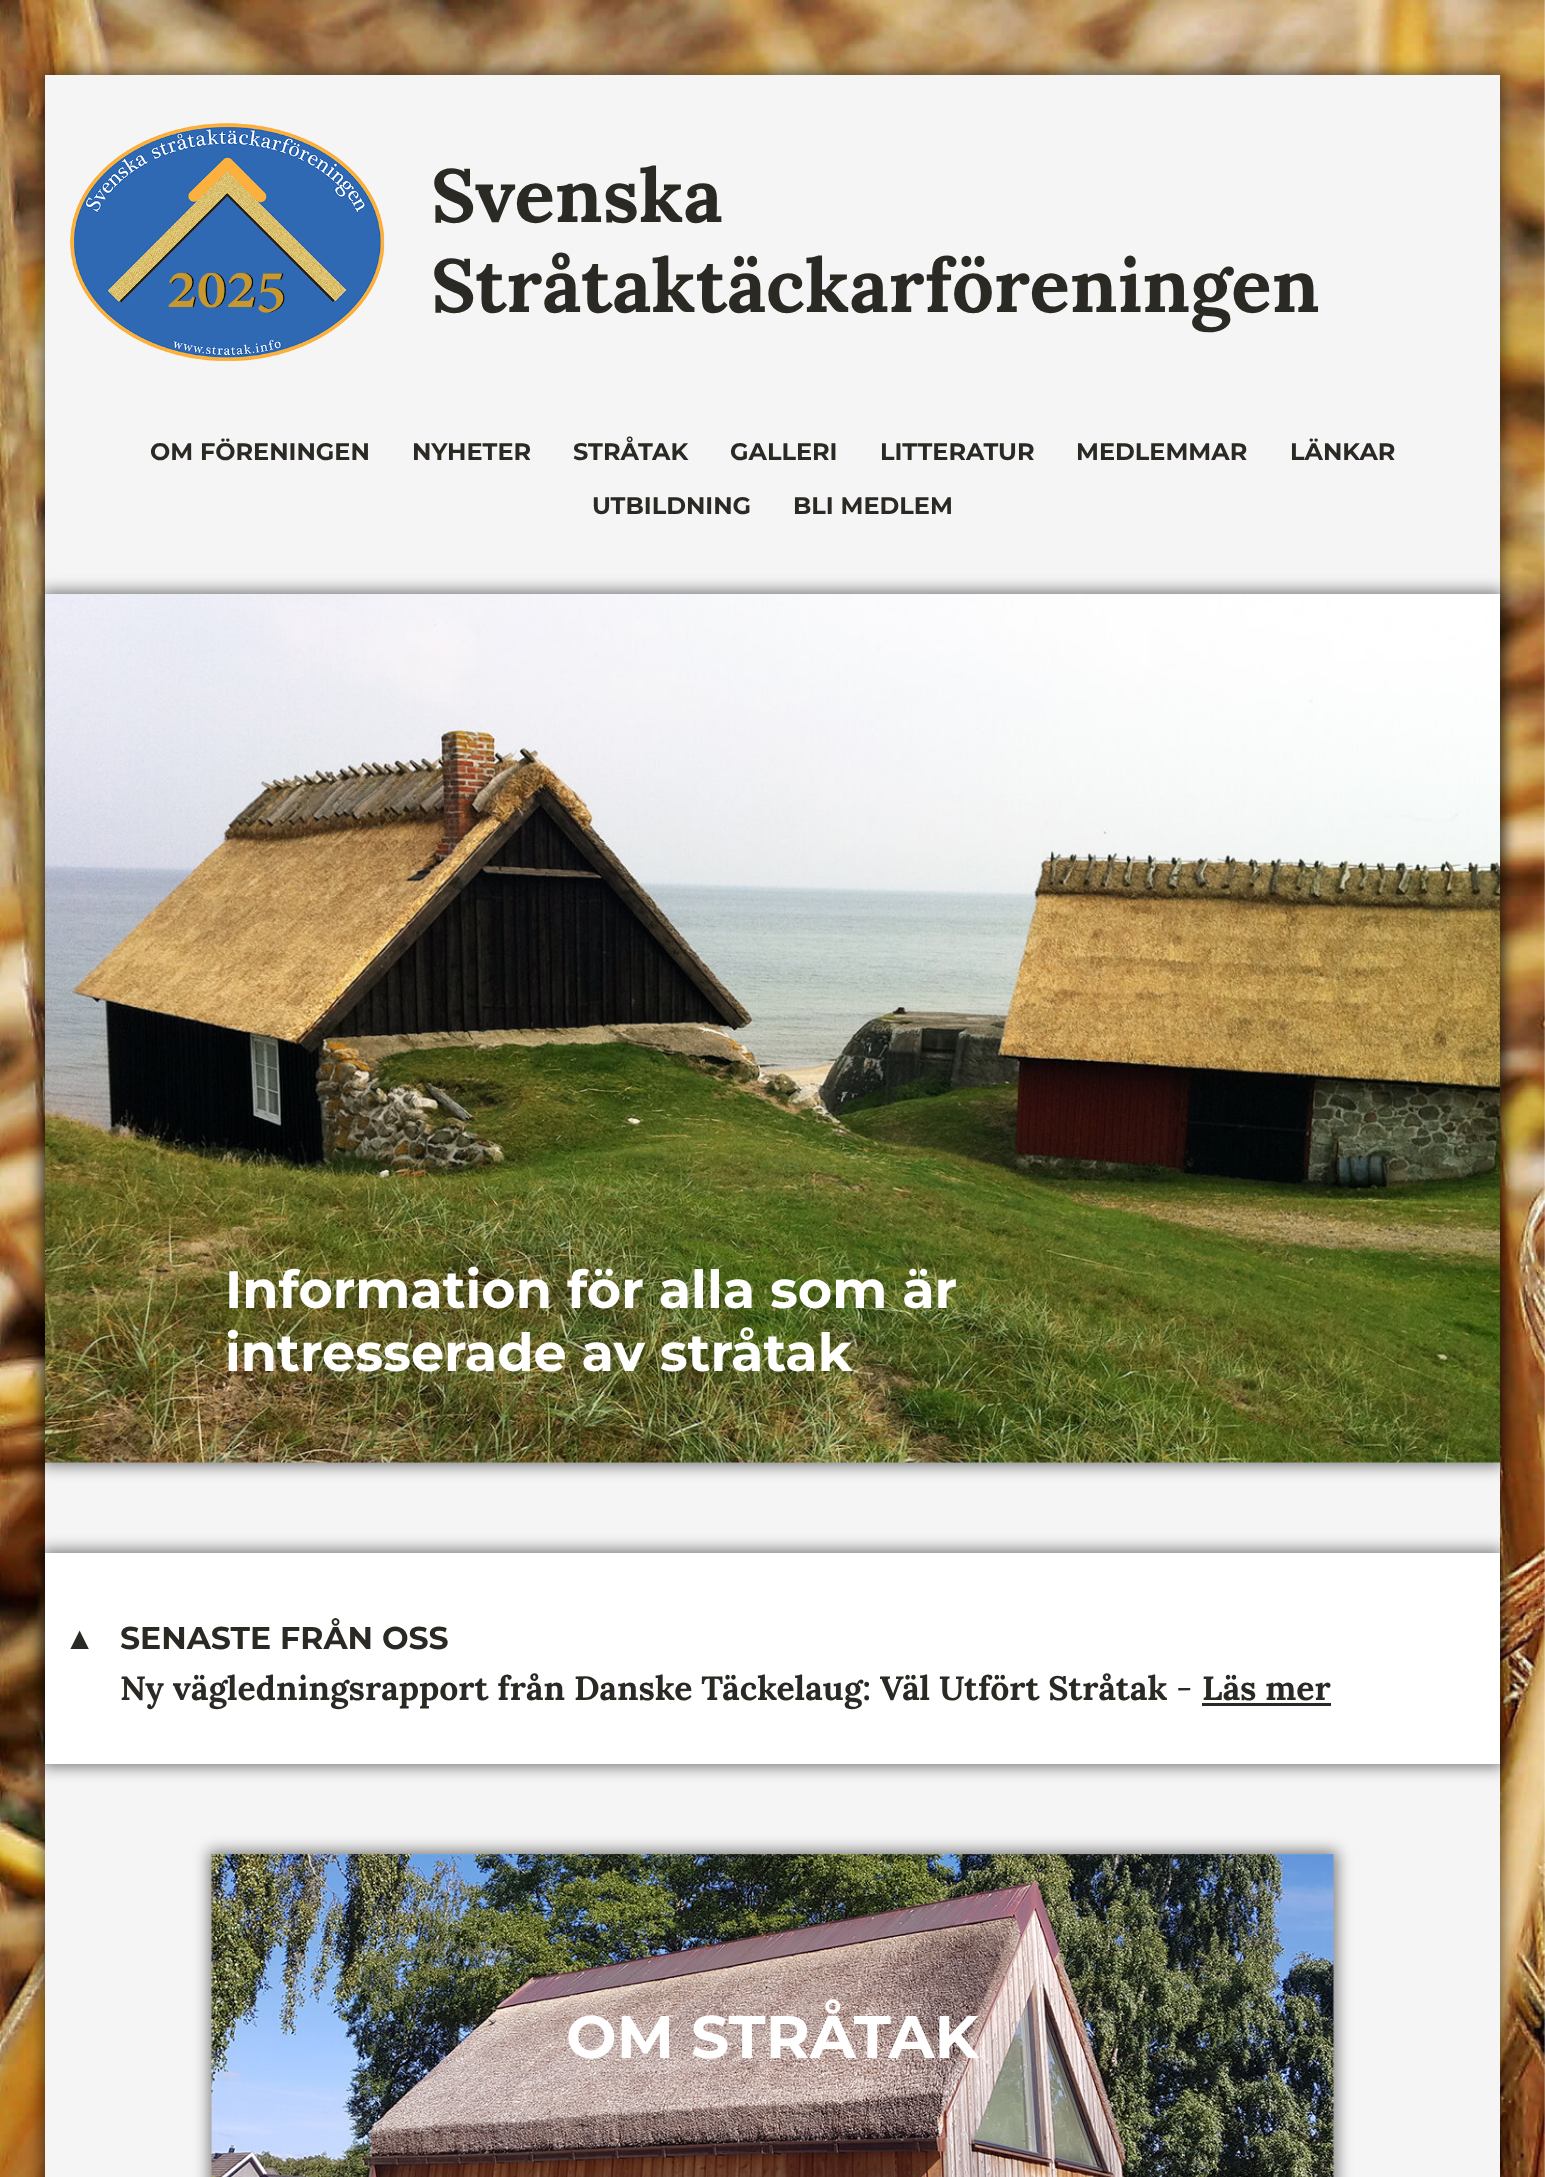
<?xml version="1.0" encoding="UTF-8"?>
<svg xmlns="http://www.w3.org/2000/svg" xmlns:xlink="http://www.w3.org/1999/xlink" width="1545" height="2177">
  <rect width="100%" height="100%" fill="#ffffff" />
  <image x="0" y="0" width="1545" height="2177" xlink:href="image1.png" />
  <rect x="42" y="72" width="1461" height="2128" fill="#000000" fill-opacity="0.5" filter="blur(7.5px)" />
  <rect x="45" y="75" width="1455" height="2102" fill="#f6f5f5" />
  <image x="70" y="123" width="315" height="238" xlink:href="image2.png" />
  <rect x="42" y="591" width="1461" height="875" fill="#000000" fill-opacity="0.5" filter="blur(7.5px)" />
  <image x="45" y="594" width="1455" height="869" xlink:href="image3.png" />
  <rect x="42" y="1550" width="1461" height="217" fill="#000000" fill-opacity="0.5" filter="blur(7.5px)" />
  <rect x="45" y="1553" width="1455" height="211" fill="#ffffff" />
  <rect x="1202" y="1703" width="129" height="3" fill="#2b2923" />
  <rect x="209" y="1851" width="1128" height="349" fill="#000000" fill-opacity="0.5" filter="blur(7.5px)" />
  <image x="211" y="1854" width="1123" height="323" xlink:href="image4.png" />
  <text x="431" y="222" style="font-family: Lora; font-size: 75px; font-weight: bold; fill: #2b2923">Svenska</text>
  <text x="431" y="312" style="font-family: Lora; font-size: 75px; font-weight: bold; fill: #2b2923">Stråtaktäckarföreningen</text>
  <text x="150" y="460" style="font-family: Montserrat; font-size: 24px; font-weight: 100; fill: #2b2923">OM FÖRENINGEN</text>
  <text x="412" y="460" style="font-family: Montserrat; font-size: 24px; font-weight: 100; fill: #2b2923">NYHETER</text>
  <text x="573" y="460" style="font-family: Montserrat; font-size: 24px; font-weight: 100; fill: #2b2923">STRÅTAK</text>
  <text x="730" y="460" style="font-family: Montserrat; font-size: 24px; font-weight: 100; fill: #2b2923">GALLERI</text>
  <text x="880" y="460" style="font-family: Montserrat; font-size: 24px; font-weight: 100; fill: #2b2923">LITTERATUR</text>
  <text x="1076" y="460" style="font-family: Montserrat; font-size: 24px; font-weight: 100; fill: #2b2923">MEDLEMMAR</text>
  <text x="1290" y="460" style="font-family: Montserrat; font-size: 24px; font-weight: 100; fill: #2b2923">LÄNKAR</text>
  <text x="592" y="514" style="font-family: Montserrat; font-size: 24px; font-weight: 100; fill: #2b2923">UTBILDNING</text>
  <text x="793" y="514" style="font-family: Montserrat; font-size: 24px; font-weight: 100; fill: #2b2923">BLI MEDLEM</text>
  <text x="225" y="1308" style="font-family: Montserrat; font-size: 52.5px; font-weight: 100; fill: #ffffff">Information för alla som är</text>
  <text x="225" y="1371" style="font-family: Montserrat; font-size: 52.5px; font-weight: 100; fill: #ffffff">intresserade av stråtak</text>
  <text x="64" y="1649" style="font-family: Liberation Sans; font-size: 31.5px; font-weight: bold; letter-spacing: 22px; fill: #2b2923">▲</text>
  <text x="120" y="1649" style="font-family: Montserrat; font-size: 31.5px; font-weight: 100; fill: #2b2923">SENASTE FRÅN OSS</text>
  <text x="120" y="1700" style="font-family: Lora; font-size: 33.75px; font-weight: bold; fill: #2b2923">Ny vägledningsrapport från Danske Täckelaug: Väl Utfört Stråtak</text>
  <text x="1176" y="1700" style="font-family: Lora; font-size: 33.75px; fill: #2b2923">-</text>
  <text x="1202" y="1700" style="font-family: Lora; font-size: 33.75px; font-weight: bold; fill: #2b2923">Läs mer</text>
  <text x="566" y="2058" style="font-family: Montserrat; font-size: 60px; font-weight: 100; fill: #ffffff">OM STRÅTAK</text>
</svg>
